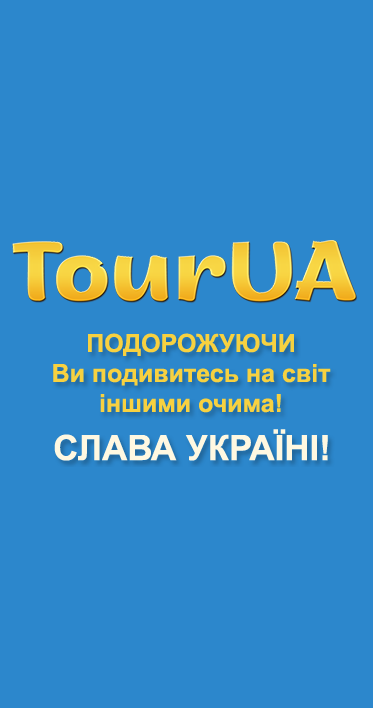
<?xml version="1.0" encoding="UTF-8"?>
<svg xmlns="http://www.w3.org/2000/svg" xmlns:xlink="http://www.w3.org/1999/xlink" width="373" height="708">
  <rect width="100%" height="100%" fill="#2c87cc" />
  <image x="12" y="240" width="345" height="227" xlink:href="image1.png" />
</svg>
